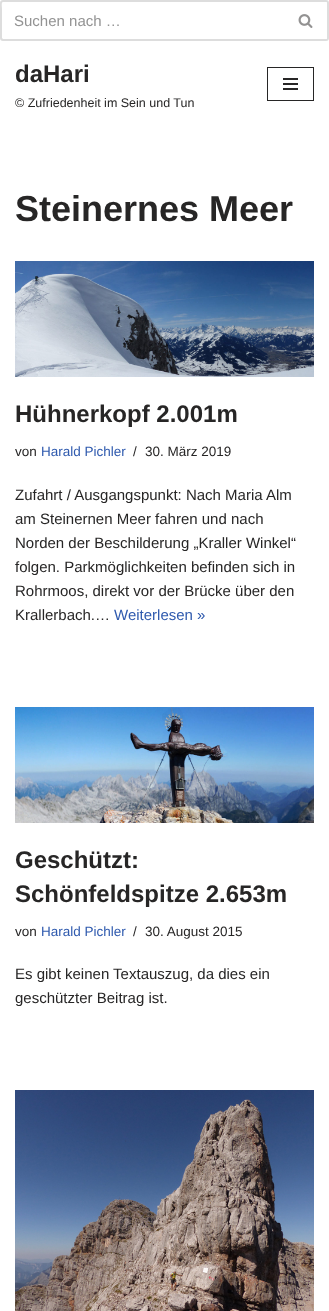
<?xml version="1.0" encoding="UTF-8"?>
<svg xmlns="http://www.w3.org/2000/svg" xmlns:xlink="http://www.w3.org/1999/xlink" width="329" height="1311">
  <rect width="100%" height="100%" fill="#ffffff" />
  <path d="M 3 0 h 281 v 41 h -281 c -2 0 -3 -1 -3 -3 v -35 c 0 -2 1 -3 3 -3 z m 0 2 h 281 v 37 h -281 l -1 -1 v -29 c 0 -2 -1 -7 1 -7 z" fill="#dddddd" fill-rule="evenodd" />
  <path d="M 284 0 h 42 c 2 0 3 1 3 3 v 35 c 0 2 -1 3 -3 3 h -42 z m 0 2 h 42 c 1 0 1 0 1 1 v 35 c 0 1 0 1 -1 1 h -42 z" fill="#dddddd" fill-rule="evenodd" />
  <image x="298" y="14" width="15" height="14" xlink:href="image1.png" />
  <rect x="267.5" y="67.5" width="46" height="33" fill="none" stroke="#272626" />
  <rect x="283" y="78" width="15" height="2" fill="#272626" />
  <rect x="283" y="83" width="15" height="2" fill="#272626" />
  <rect x="283" y="88" width="15" height="2" fill="#272626" />
  <image x="15" y="261" width="299" height="116" xlink:href="image2.png" />
  <image x="15" y="707" width="299" height="116" xlink:href="image3.png" />
  <image x="15" y="1090" width="299" height="221" xlink:href="image4.png" />
  <text x="14" y="26" style="font-family: Liberation Sans; font-size: 15px; fill: #939393">Suchen nach …</text>
  <text x="15" y="82" style="font-family: Liberation Sans; font-size: 24px; font-weight: bold; fill: #272626">daHari</text>
  <text x="15" y="107" style="font-family: Liberation Sans; font-size: 12.5px; fill: #272626">© Zufriedenheit im Sein und Tun</text>
  <text x="15" y="221" style="font-family: Liberation Sans; font-size: 36px; font-weight: bold; fill: #272626">Steinernes Meer</text>
  <text x="15" y="422" style="font-family: Liberation Sans; font-size: 24px; font-weight: bold; fill: #272626">Hühnerkopf 2.001m</text>
  <text x="15" y="456" style="font-family: Liberation Sans; font-size: 13.5px; fill: #272626">von</text>
  <text x="41" y="456" style="font-family: Liberation Sans; font-size: 13.5px; fill: #2f5aae">Harald Pichler</text>
  <text x="133" y="456" style="font-family: Liberation Sans; font-size: 13.5px; fill: #272626">/</text>
  <text x="145" y="456" style="font-family: Liberation Sans; font-size: 13.5px; fill: #272626">30. März 2019</text>
  <text x="15" y="500" style="font-family: Liberation Sans; font-size: 15px; fill: #272626">Zufahrt / Ausgangspunkt: Nach Maria Alm</text>
  <text x="15" y="524" style="font-family: Liberation Sans; font-size: 15px; fill: #272626">am Steinernen Meer fahren und nach</text>
  <text x="15" y="548" style="font-family: Liberation Sans; font-size: 15px; fill: #272626">Norden der Beschilderung „Kraller Winkel“</text>
  <text x="15" y="572" style="font-family: Liberation Sans; font-size: 15px; fill: #272626">folgen. Parkmöglichkeiten befinden sich in</text>
  <text x="15" y="596" style="font-family: Liberation Sans; font-size: 15px; fill: #272626">Rohrmoos, direkt vor der Brücke über den</text>
  <text x="15" y="620" style="font-family: Liberation Sans; font-size: 15px; fill: #272626">Krallerbach.…</text>
  <text x="114" y="620" style="font-family: Liberation Sans; font-size: 15px; fill: #2f5aae">Weiterlesen »</text>
  <text x="15" y="868" style="font-family: Liberation Sans; font-size: 24px; font-weight: bold; fill: #272626">Geschützt:</text>
  <text x="15" y="902" style="font-family: Liberation Sans; font-size: 24px; font-weight: bold; fill: #272626">Schönfeldspitze 2.653m</text>
  <text x="15" y="936" style="font-family: Liberation Sans; font-size: 13.5px; fill: #272626">von</text>
  <text x="41" y="936" style="font-family: Liberation Sans; font-size: 13.5px; fill: #2f5aae">Harald Pichler</text>
  <text x="133" y="936" style="font-family: Liberation Sans; font-size: 13.5px; fill: #272626">/</text>
  <text x="145" y="936" style="font-family: Liberation Sans; font-size: 13.5px; fill: #272626">30. August 2015</text>
  <text x="15" y="979" style="font-family: Liberation Sans; font-size: 15px; fill: #272626">Es gibt keinen Textauszug, da dies ein</text>
  <text x="15" y="1003" style="font-family: Liberation Sans; font-size: 15px; fill: #272626">geschützter Beitrag ist.</text>
</svg>
